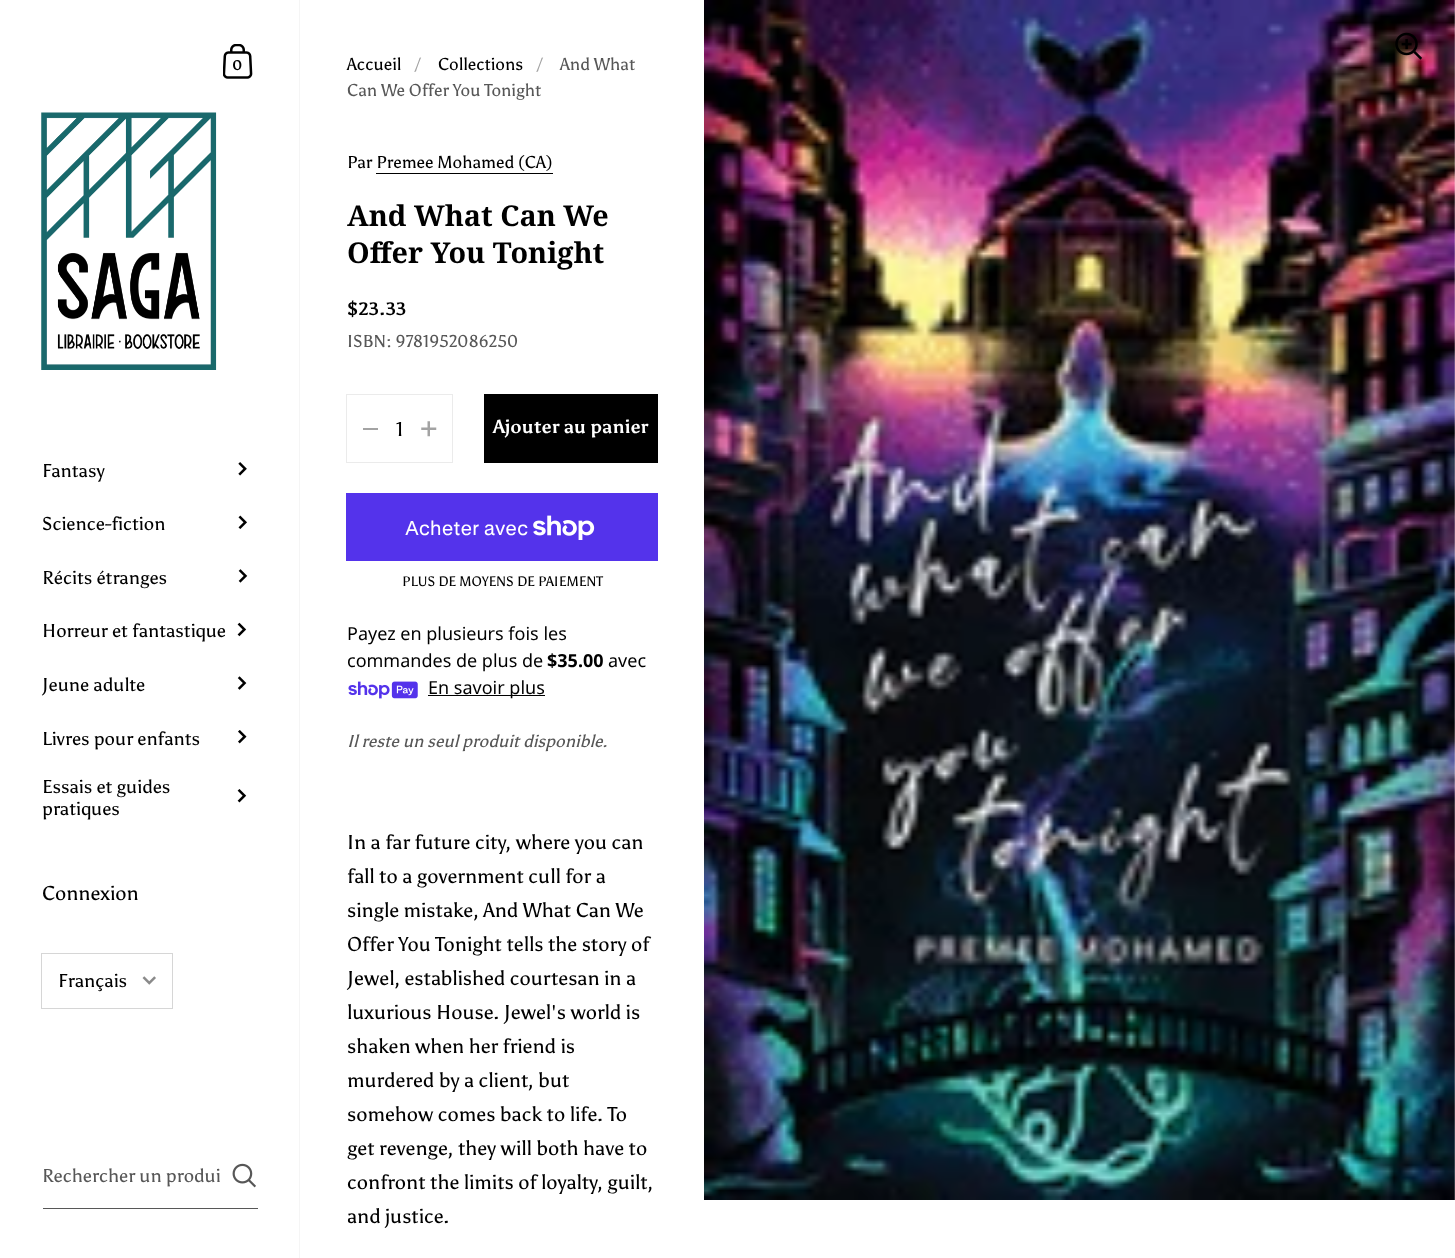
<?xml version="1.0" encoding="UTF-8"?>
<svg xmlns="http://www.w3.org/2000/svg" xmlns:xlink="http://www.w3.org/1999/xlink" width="1455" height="1258">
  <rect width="100%" height="100%" fill="#ffffff" />
  <rect x="299" width="1" height="1258" fill="#f5f5f5" />
  <image x="223" y="44" width="30" height="35" xlink:href="image1.png" />
  <image x="41" y="112" width="176" height="258" xlink:href="image2.png" />
  <image x="238" y="462" width="9" height="14" xlink:href="image3.png" />
  <image x="238" y="515" width="9" height="14" xlink:href="image4.png" />
  <image x="238" y="569" width="10" height="14" xlink:href="image5.png" />
  <image x="237" y="622" width="10" height="15" xlink:href="image6.png" />
  <image x="237" y="676" width="10" height="14" xlink:href="image7.png" />
  <image x="238" y="730" width="9" height="14" xlink:href="image8.png" />
  <image x="237" y="789" width="10" height="14" xlink:href="image9.png" />
  <rect x="41.5" y="953.5" width="131" height="55" fill="none" stroke="#d6d6d6" />
  <image x="142" y="976" width="14" height="9" xlink:href="image10.png" />
  <rect x="43" y="1208" width="215" height="1" fill="#575757" />
  <image x="232" y="1163" width="24" height="25" xlink:href="image11.png" />
  <rect x="376" y="173" width="177" height="1" fill="#000000" />
  <rect x="346.5" y="394.5" width="106" height="68" fill="none" stroke="#ebebeb" />
  <rect x="363" y="428" width="15" height="2" fill="#a3a3a3" />
  <image x="421" y="421" width="16" height="16" xlink:href="image12.png" />
  <rect x="484" y="394" width="174" height="69" fill="#000000" />
  <rect x="346" y="493" width="312" height="68" fill="#5433eb" />
  <image x="533" y="515" width="62" height="25" xlink:href="image13.png" />
  <image x="348" y="681" width="70" height="18" xlink:href="image14.png" />
  <rect x="428" y="695" width="117" height="1" fill="#000000" />
  <image x="704" y="0" width="751" height="1200" xlink:href="image15.png" />
  <image x="1395" y="32" width="27" height="28" xlink:href="image16.png" />
  <text x="232" y="70" style="font-family: Asul; font-size: 14px; font-weight: bold; fill: #000000">0</text>
  <text x="42" y="477" style="font-family: Asul; font-size: 18.5px; fill: #000000">Fantasy</text>
  <text x="42" y="530" style="font-family: Asul; font-size: 18.5px; fill: #000000">Science-fiction</text>
  <text x="42" y="584" style="font-family: Asul; font-size: 18.5px; fill: #000000">Récits étranges</text>
  <text x="42" y="637" style="font-family: Asul; font-size: 18.5px; fill: #000000">Horreur et fantastique</text>
  <text x="42" y="691" style="font-family: Asul; font-size: 18.5px; fill: #000000">Jeune adulte</text>
  <text x="42" y="745" style="font-family: Asul; font-size: 18.5px; fill: #000000">Livres pour enfants</text>
  <text x="42" y="793" style="font-family: Asul; font-size: 18.5px; fill: #000000">Essais et guides</text>
  <text x="42" y="815" style="font-family: Asul; font-size: 18.5px; fill: #000000">pratiques</text>
  <text x="42" y="900" style="font-family: Asul; font-size: 20px; fill: #000000">Connexion</text>
  <text x="58" y="987" style="font-family: Asul; font-size: 18.5px; fill: #000000">Français</text>
  <text x="42" y="1182" style="font-family: Asul; font-size: 18.5px; fill: #575757">Rechercher un produi</text>
  <text x="347" y="70" style="font-family: Asul; font-size: 17.1px; fill: #000000">Accueil</text>
  <text x="415" y="70" style="font-family: Asul; font-size: 17.1px; fill: #a3a3a3">/</text>
  <text x="438" y="70" style="font-family: Asul; font-size: 17.1px; fill: #000000">Collections</text>
  <text x="537" y="70" style="font-family: Asul; font-size: 17.1px; fill: #a3a3a3">/</text>
  <text x="560" y="70" style="font-family: Asul; font-size: 17.1px; fill: #575757">And What</text>
  <text x="347" y="96" style="font-family: Asul; font-size: 17.1px; fill: #575757">Can We Offer You Tonight</text>
  <text x="347" y="168" style="font-family: Asul; font-size: 17.1px; fill: #000000">Par Premee Mohamed (CA)</text>
  <text x="347" y="226" style="font-family: Noto Serif; font-size: 28.75px; font-weight: bold; fill: #000000">And What Can We</text>
  <text x="347" y="263" style="font-family: Noto Serif; font-size: 28.75px; font-weight: bold; fill: #000000">Offer You Tonight</text>
  <text x="347" y="315" style="font-family: Asul; font-size: 18px; font-weight: bold; fill: #000000">$23.33</text>
  <text x="347" y="347" style="font-family: Asul; font-size: 17.1px; fill: #575757">ISBN: 9781952086250</text>
  <text x="396" y="436" style="font-family: Asul; font-size: 20px; fill: #000000">1</text>
  <text x="493" y="433" style="font-family: Asul; font-size: 18.75px; font-weight: bold; fill: #ffffff">Ajouter au panier</text>
  <text x="405" y="535" style="font-family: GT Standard; font-size: 20px; fill: #ffffff">Acheter avec</text>
  <text x="402" y="586" style="font-family: Asul; font-size: 13.75px; fill: #000000">PLUS DE MOYENS DE PAIEMENT</text>
  <text x="347" y="640" style="font-family: Noto Sans; font-size: 18px; fill: #000000">Payez en plusieurs fois les</text>
  <text x="347" y="667" style="font-family: Noto Sans; font-size: 18px; fill: #000000">commandes de plus de</text>
  <text x="547" y="667" style="font-family: Noto Sans; font-size: 18px; font-weight: bold; fill: #000000">$35.00</text>
  <text x="608" y="667" style="font-family: Noto Sans; font-size: 18px; fill: #000000">avec</text>
  <text x="428" y="694" style="font-family: Noto Sans; font-size: 18px; fill: #000000">En savoir plus</text>
  <text x="347" y="747" style="font-family: Asul; font-size: 17.1px; font-style: italic; fill: #575757">Il reste un seul produit disponible.</text>
  <text x="347" y="849" style="font-family: Asul; font-size: 20px; fill: #000000">In a far future city, where you can</text>
  <text x="347" y="883" style="font-family: Asul; font-size: 20px; fill: #000000">fall to a government cull for a</text>
  <text x="347" y="917" style="font-family: Asul; font-size: 20px; fill: #000000">single mistake, And What Can We</text>
  <text x="347" y="951" style="font-family: Asul; font-size: 20px; fill: #000000">Offer You Tonight tells the story of</text>
  <text x="347" y="985" style="font-family: Asul; font-size: 20px; fill: #000000">Jewel, established courtesan in a</text>
  <text x="347" y="1019" style="font-family: Asul; font-size: 20px; fill: #000000">luxurious House. Jewel's world is</text>
  <text x="347" y="1053" style="font-family: Asul; font-size: 20px; fill: #000000">shaken when her friend is</text>
  <text x="347" y="1087" style="font-family: Asul; font-size: 20px; fill: #000000">murdered by a client, but</text>
  <text x="347" y="1121" style="font-family: Asul; font-size: 20px; fill: #000000">somehow comes back to life. To</text>
  <text x="347" y="1155" style="font-family: Asul; font-size: 20px; fill: #000000">get revenge, they will both have to</text>
  <text x="347" y="1189" style="font-family: Asul; font-size: 20px; fill: #000000">confront the limits of loyalty, guilt,</text>
  <text x="347" y="1223" style="font-family: Asul; font-size: 20px; fill: #000000">and justice.</text>
</svg>
